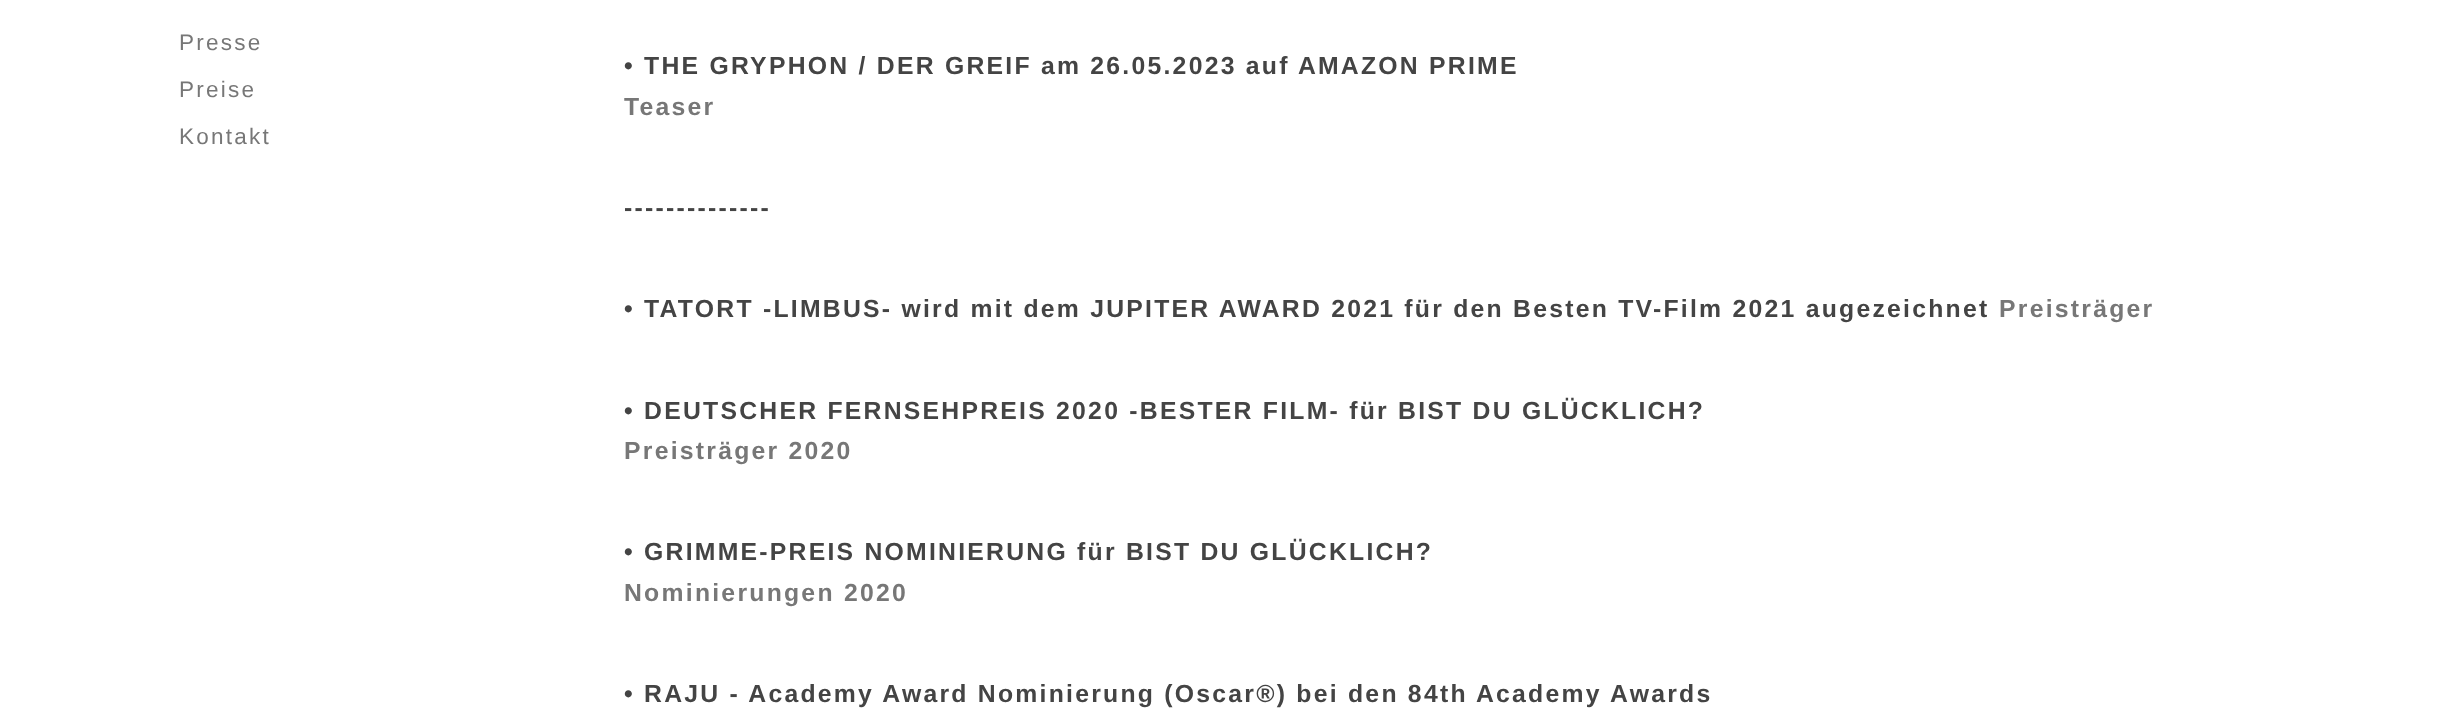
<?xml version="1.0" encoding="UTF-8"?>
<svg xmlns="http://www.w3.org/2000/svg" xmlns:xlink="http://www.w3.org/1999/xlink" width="2462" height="718">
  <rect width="100%" height="100%" fill="#ffffff" />
  <text x="179" y="50" style="font-family: Liberation Sans; font-size: 22.5px; letter-spacing: 2.25px; fill: #777777">Presse</text>
  <text x="179" y="97" style="font-family: Liberation Sans; font-size: 22.5px; letter-spacing: 2.25px; fill: #777777">Preise</text>
  <text x="179" y="144" style="font-family: Liberation Sans; font-size: 22.5px; letter-spacing: 2.25px; fill: #777777">Kontakt</text>
  <text x="624" y="74" style="font-family: Liberation Sans; font-size: 24.75px; font-weight: bold; letter-spacing: 2.25px; fill: #444444">• THE GRYPHON / DER GREIF am 26.05.2023 auf AMAZON PRIME</text>
  <text x="624" y="115" style="font-family: Liberation Sans; font-size: 24.75px; font-weight: bold; letter-spacing: 2.25px; fill: #777777">Teaser</text>
  <text x="624" y="216" style="font-family: Liberation Sans; font-size: 24.75px; font-weight: bold; letter-spacing: 2.25px; fill: #444444">--------------</text>
  <text x="624" y="317" style="font-family: Liberation Sans; font-size: 24.75px; font-weight: bold; letter-spacing: 2.25px; fill: #444444">• TATORT -LIMBUS- wird mit dem JUPITER AWARD 2021 für den Besten TV-Film 2021 augezeichnet</text>
  <text x="1999" y="317" style="font-family: Liberation Sans; font-size: 24.75px; font-weight: bold; letter-spacing: 2.25px; fill: #777777">Preisträger</text>
  <text x="624" y="419" style="font-family: Liberation Sans; font-size: 24.75px; font-weight: bold; letter-spacing: 2.25px; fill: #444444">• DEUTSCHER FERNSEHPREIS 2020 -BESTER FILM- für BIST DU GLÜCKLICH?</text>
  <text x="624" y="459" style="font-family: Liberation Sans; font-size: 24.75px; font-weight: bold; letter-spacing: 2.25px; fill: #777777">Preisträger 2020</text>
  <text x="624" y="560" style="font-family: Liberation Sans; font-size: 24.75px; font-weight: bold; letter-spacing: 2.25px; fill: #444444">• GRIMME-PREIS NOMINIERUNG für BIST DU GLÜCKLICH?</text>
  <text x="624" y="601" style="font-family: Liberation Sans; font-size: 24.75px; font-weight: bold; letter-spacing: 2.25px; fill: #777777">Nominierungen 2020</text>
  <text x="624" y="702" style="font-family: Liberation Sans; font-size: 24.75px; font-weight: bold; letter-spacing: 2.25px; fill: #444444">• RAJU - Academy Award Nominierung (Oscar®) bei den 84th Academy Awards</text>
</svg>
